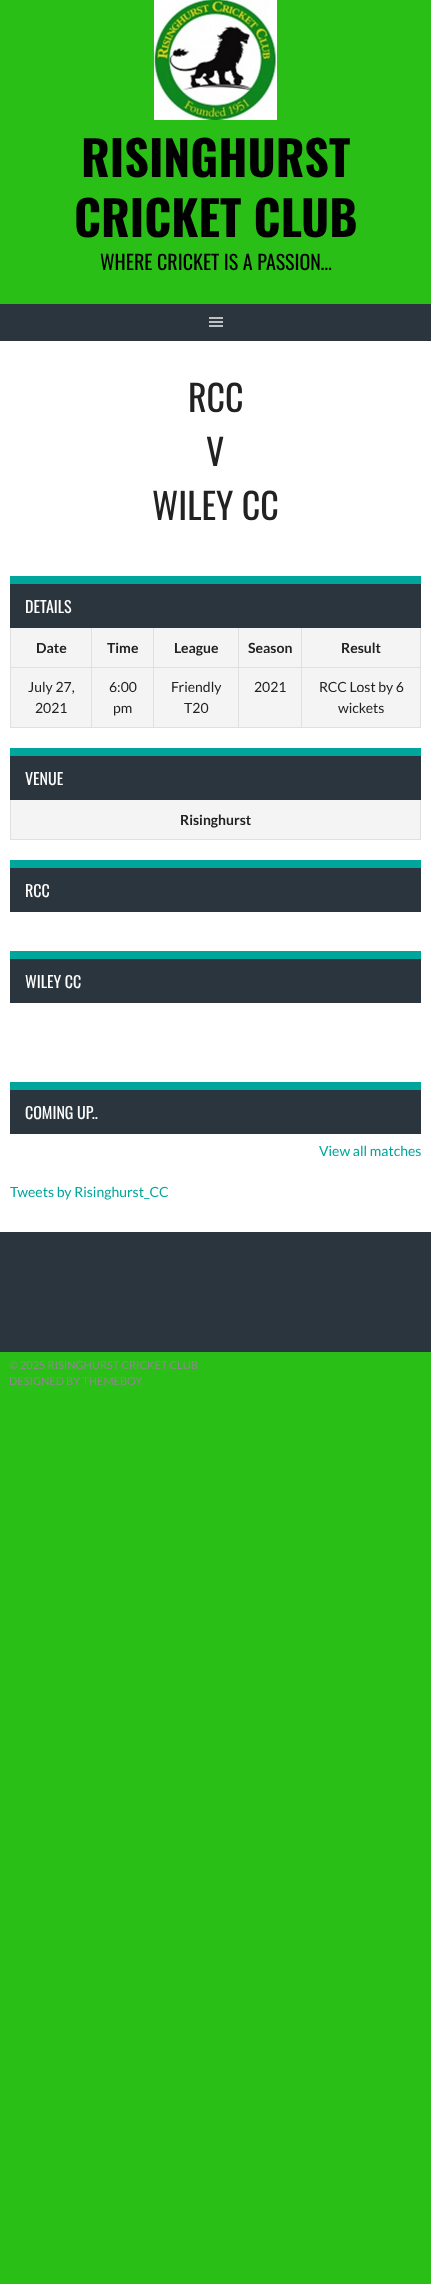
<?xml version="1.0" encoding="UTF-8"?>
<svg xmlns="http://www.w3.org/2000/svg" xmlns:xlink="http://www.w3.org/1999/xlink" width="431" height="2284">
  <rect width="100%" height="100%" fill="#2abf16" />
  <image x="154" y="0" width="123" height="120" xlink:href="image1.png" />
  <rect y="304" width="431" height="37" fill="#2b353e" />
  <image x="209" y="317" width="14" height="10" xlink:href="image2.png" />
  <rect y="341" width="431" height="891" fill="#ffffff" />
  <rect x="420" y="627" width="1" height="101" fill="#e0e0e0" />
  <rect x="10" y="727" width="411" height="1" fill="#e0e0e0" />
  <rect x="10" y="627" width="1" height="101" fill="#e0e0e0" />
  <rect x="11" y="628" width="409" height="99" fill="#f4f4f4" />
  <rect x="301" y="667" width="120" height="1" fill="#e0e0e0" />
  <rect x="301" y="667" width="1" height="61" fill="#e0e0e0" />
  <rect x="238" y="667" width="64" height="1" fill="#e0e0e0" />
  <rect x="238" y="667" width="1" height="61" fill="#e0e0e0" />
  <rect x="153" y="667" width="86" height="1" fill="#e0e0e0" />
  <rect x="153" y="667" width="1" height="61" fill="#e0e0e0" />
  <rect x="91" y="667" width="63" height="1" fill="#e0e0e0" />
  <rect x="91" y="667" width="1" height="61" fill="#e0e0e0" />
  <rect x="10" y="667" width="82" height="1" fill="#e0e0e0" />
  <rect x="91" y="627" width="1" height="41" fill="#e0e0e0" />
  <rect x="153" y="627" width="1" height="41" fill="#e0e0e0" />
  <rect x="238" y="627" width="1" height="41" fill="#e0e0e0" />
  <rect x="301" y="627" width="1" height="41" fill="#e0e0e0" />
  <rect x="10" y="584" width="411" height="44" fill="#2b353e" />
  <rect x="10" y="576" width="411" height="8" fill="#00a69c" />
  <rect x="420" y="799" width="1" height="41" fill="#e0e0e0" />
  <rect x="10" y="839" width="411" height="1" fill="#e0e0e0" />
  <rect x="10" y="799" width="1" height="41" fill="#e0e0e0" />
  <rect x="10" y="756" width="411" height="44" fill="#2b353e" />
  <rect x="10" y="748" width="411" height="8" fill="#00a69c" />
  <rect x="11" y="800" width="409" height="39" fill="#f4f4f4" />
  <rect x="10" y="868" width="411" height="44" fill="#2b353e" />
  <rect x="10" y="860" width="411" height="8" fill="#00a69c" />
  <rect x="10" y="959" width="411" height="44" fill="#2b353e" />
  <rect x="10" y="951" width="411" height="8" fill="#00a69c" />
  <rect x="10" y="1090" width="411" height="44" fill="#2b353e" />
  <rect x="10" y="1082" width="411" height="8" fill="#00a69c" />
  <rect y="1232" width="431" height="120" fill="#2b353e" />
  <text x="81" y="177" style="font-family: Oswald; font-size: 48px; font-weight: bold; fill: #000000">RISINGHURST</text>
  <text x="74" y="237" style="font-family: Oswald; font-size: 48px; font-weight: bold; fill: #000000">CRICKET CLUB</text>
  <text x="100" y="270" style="font-family: Oswald; font-size: 20px; fill: #000000">WHERE CRICKET IS A PASSION…</text>
  <text x="188" y="412" style="font-family: Oswald; font-size: 36px; fill: #222222">RCC</text>
  <text x="206" y="466" style="font-family: Oswald; font-size: 36px; fill: #222222">V</text>
  <text x="152" y="520" style="font-family: Oswald; font-size: 36px; fill: #222222">WILEY CC</text>
  <text x="25" y="613" style="font-family: Oswald; font-size: 16px; fill: #ffffff">DETAILS</text>
  <text x="36" y="653" style="font-family: Lato; font-size: 14px; font-weight: bold; fill: #222222">Date</text>
  <text x="107" y="653" style="font-family: Lato; font-size: 14px; font-weight: bold; fill: #222222">Time</text>
  <text x="174" y="653" style="font-family: Lato; font-size: 14px; font-weight: bold; fill: #222222">League</text>
  <text x="248" y="653" style="font-family: Lato; font-size: 14px; font-weight: bold; fill: #222222">Season</text>
  <text x="341" y="653" style="font-family: Lato; font-size: 14px; font-weight: bold; fill: #222222">Result</text>
  <text x="28" y="692" style="font-family: Lato; font-size: 14px; fill: #222222">July 27,</text>
  <text x="35" y="713" style="font-family: Lato; font-size: 14px; fill: #222222">2021</text>
  <text x="109" y="692" style="font-family: Lato; font-size: 14px; fill: #222222">6:00</text>
  <text x="113" y="713" style="font-family: Lato; font-size: 14px; fill: #222222">pm</text>
  <text x="171" y="692" style="font-family: Lato; font-size: 14px; fill: #222222">Friendly</text>
  <text x="184" y="713" style="font-family: Lato; font-size: 14px; fill: #222222">T20</text>
  <text x="254" y="692" style="font-family: Lato; font-size: 14px; fill: #222222">2021</text>
  <text x="319" y="692" style="font-family: Lato; font-size: 14px; fill: #222222">RCC Lost by 6</text>
  <text x="338" y="713" style="font-family: Lato; font-size: 14px; fill: #222222">wickets</text>
  <text x="25" y="785" style="font-family: Oswald; font-size: 16px; fill: #ffffff">VENUE</text>
  <text x="180" y="825" style="font-family: Lato; font-size: 14px; font-weight: bold; fill: #222222">Risinghurst</text>
  <text x="25" y="897" style="font-family: Oswald; font-size: 16px; fill: #ffffff">RCC</text>
  <text x="25" y="988" style="font-family: Oswald; font-size: 16px; fill: #ffffff">WILEY CC</text>
  <text x="25" y="1119" style="font-family: Oswald; font-size: 16px; fill: #ffffff">COMING UP..</text>
  <text x="319" y="1156" style="font-family: Lato; font-size: 14px; fill: #00a69c">View all matches</text>
  <text x="10" y="1197" style="font-family: Lato; font-size: 14px; fill: #00a69c">Tweets by Risinghurst_CC</text>
  <text x="9" y="1369" style="font-family: Lato; font-size: 11px; fill: #8b8b8b">© 2025 RISINGHURST CRICKET CLUB</text>
  <text x="9" y="1385" style="font-family: Lato; font-size: 11px; fill: #8b8b8b">DESIGNED BY THEMEBOY</text>
</svg>
